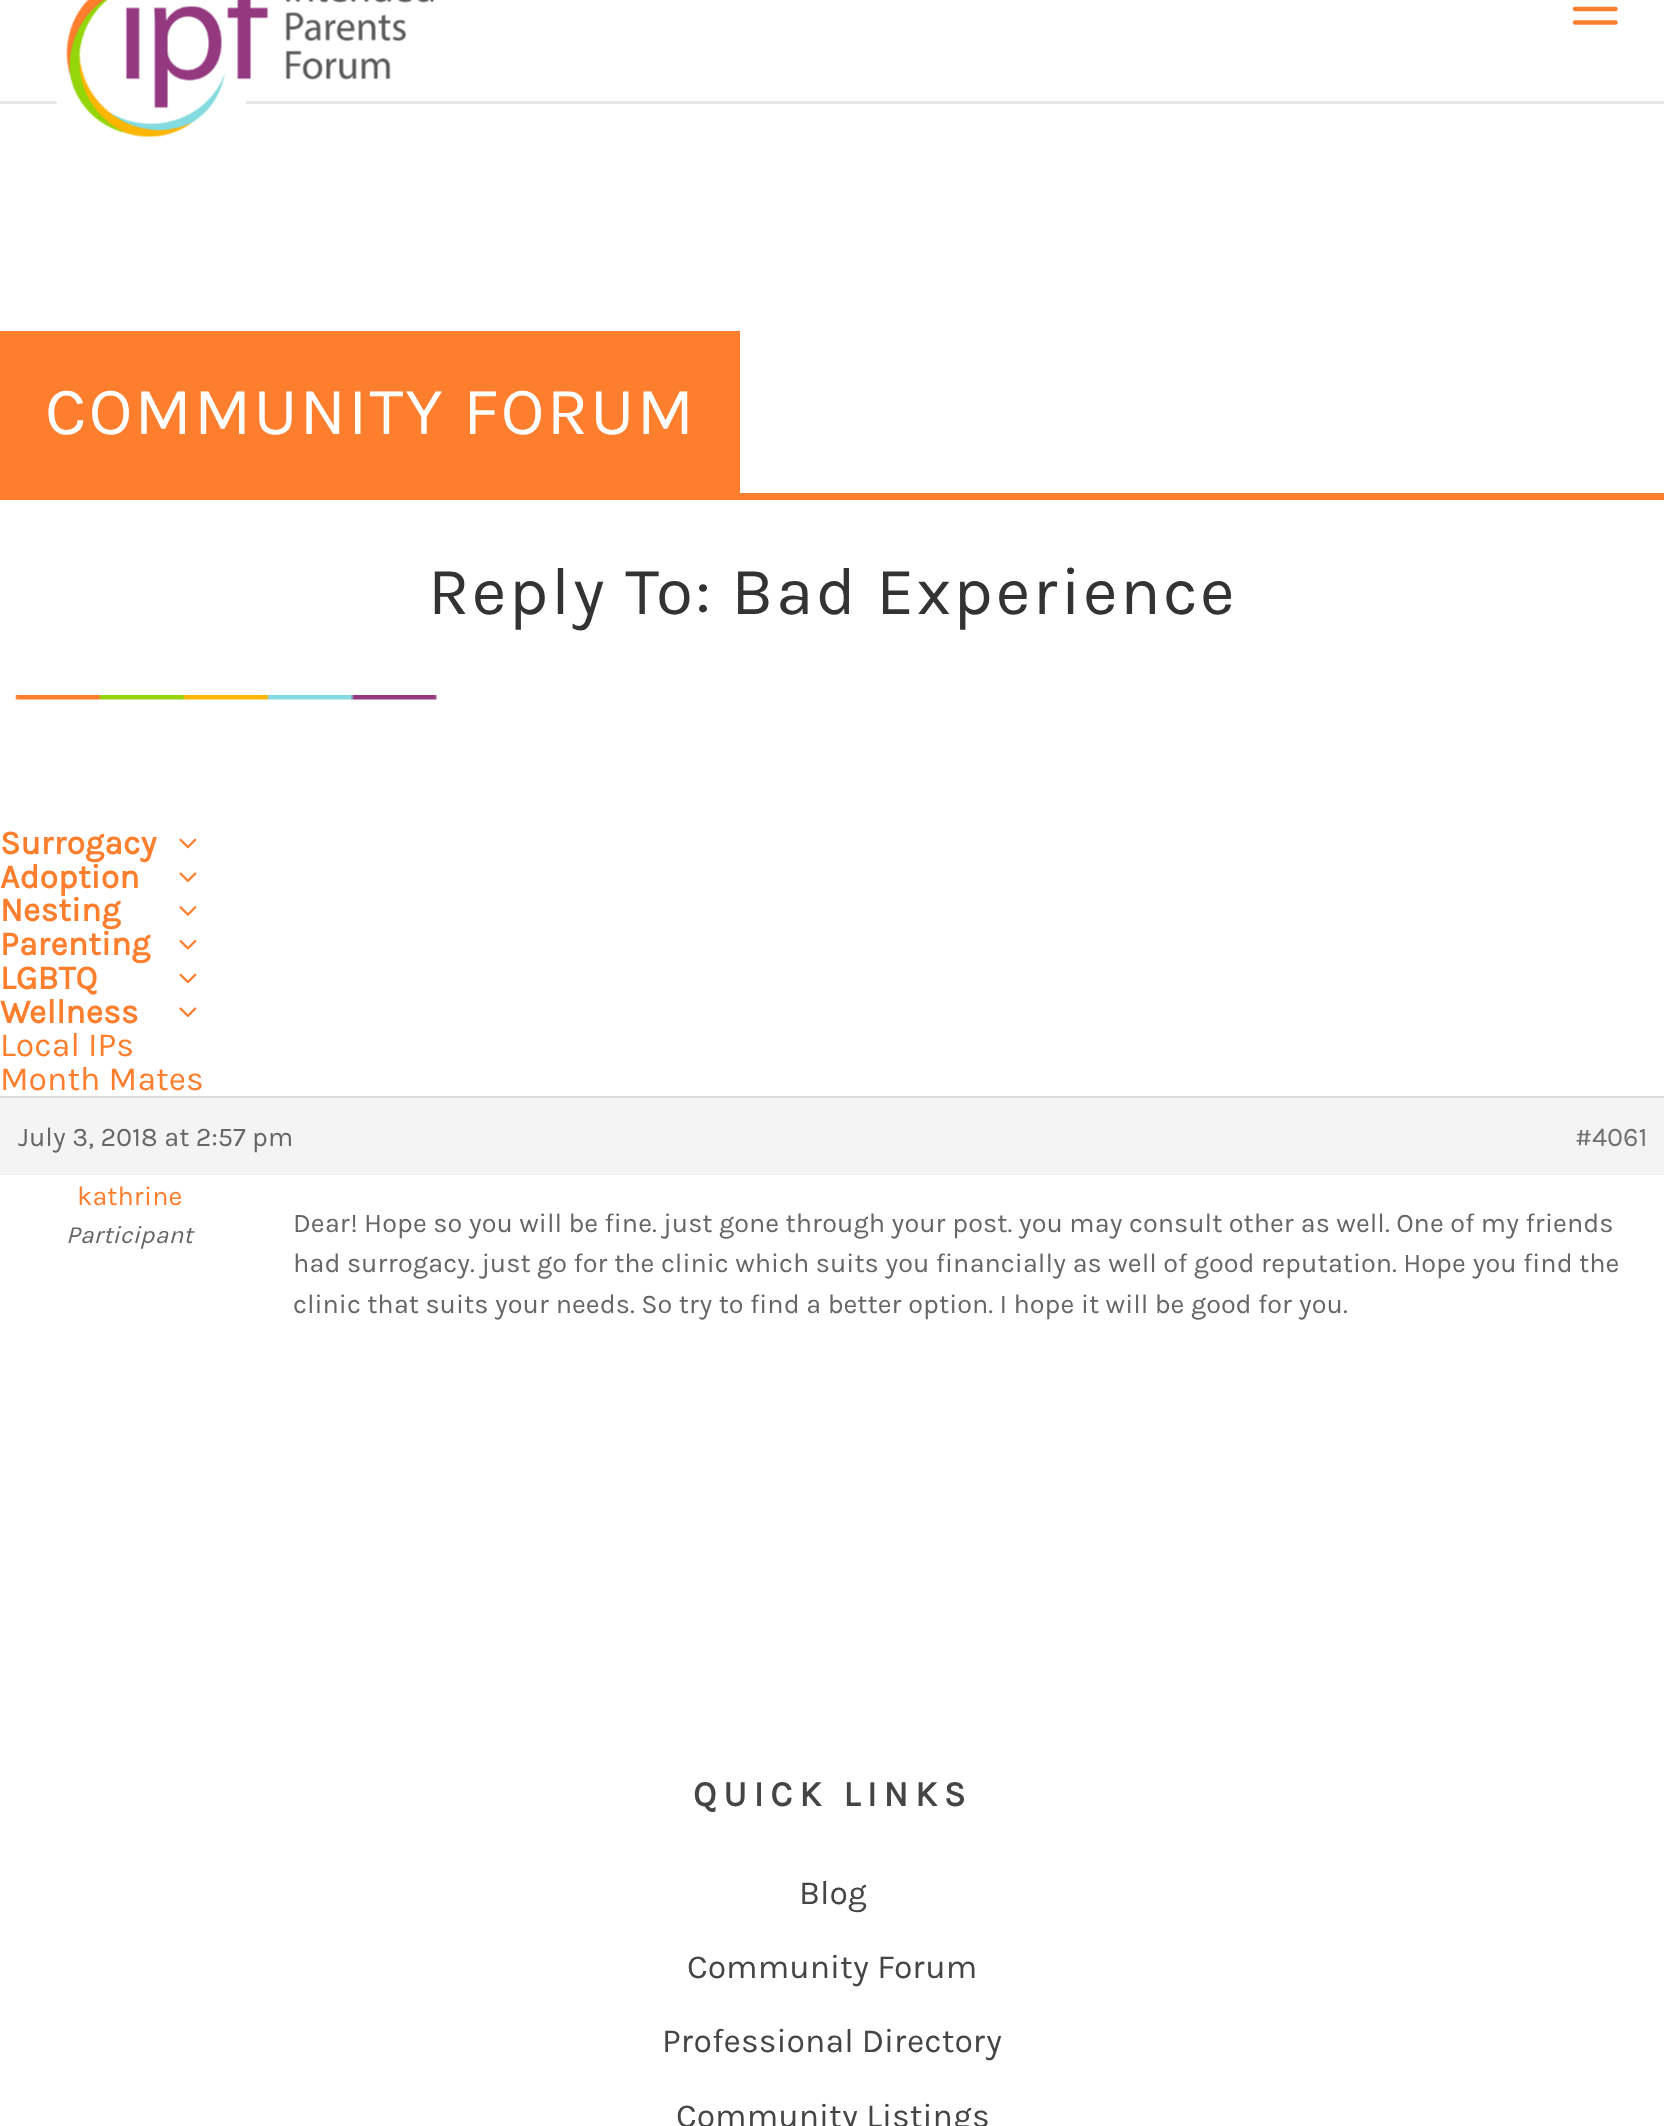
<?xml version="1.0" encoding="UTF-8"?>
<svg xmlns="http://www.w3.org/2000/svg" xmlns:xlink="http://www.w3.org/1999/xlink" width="1664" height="2126">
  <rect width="100%" height="100%" fill="#ffffff" />
  <rect y="101" width="1664" height="3" fill="#e6e6e6" />
  <image x="55" y="0" width="379" height="137" xlink:href="image1.png" />
  <image x="1572" y="6" width="46" height="19" xlink:href="image2.png" />
  <rect y="493" width="1664" height="7" fill="#fd7e2d" />
  <rect y="331" width="740" height="162" fill="#fd7e2d" />
  <image x="15" y="695" width="422" height="5" xlink:href="image3.png" />
  <image x="179" y="838" width="18" height="11" xlink:href="image4.png" />
  <image x="179" y="872" width="18" height="10" xlink:href="image5.png" />
  <image x="179" y="906" width="18" height="10" xlink:href="image6.png" />
  <image x="179" y="940" width="18" height="10" xlink:href="image7.png" />
  <image x="179" y="973" width="18" height="11" xlink:href="image4.png" />
  <image x="179" y="1007" width="18" height="10" xlink:href="image5.png" />
  <rect y="1098" width="1664" height="77" fill="#f4f4f4" />
  <rect y="1096" width="1664" height="2" fill="#dddddd" />
  <text x="45" y="434" style="font-family: Karla; font-size: 67.5px; letter-spacing: 2.25px; fill: #ffffff">COMMUNITY FORUM</text>
  <text x="428" y="614" style="font-family: Karla; font-size: 67.5px; letter-spacing: 2.25px; fill: #333333">Reply To: Bad Experience</text>
  <text x="0" y="854" style="font-family: Karla; font-size: 33.75px; font-weight: bold; fill: #fd7e2d">Surrogacy</text>
  <text x="0" y="888" style="font-family: Karla; font-size: 33.75px; font-weight: bold; fill: #fd7e2d">Adoption</text>
  <text x="0" y="921" style="font-family: Karla; font-size: 33.75px; font-weight: bold; fill: #fd7e2d">Nesting</text>
  <text x="0" y="955" style="font-family: Karla; font-size: 33.75px; font-weight: bold; fill: #fd7e2d">Parenting</text>
  <text x="0" y="989" style="font-family: Karla; font-size: 33.75px; font-weight: bold; fill: #fd7e2d">LGBTQ</text>
  <text x="0" y="1023" style="font-family: Karla; font-size: 33.75px; font-weight: bold; fill: #fd7e2d">Wellness</text>
  <text x="0" y="1056" style="font-family: Karla; font-size: 33.75px; fill: #fd7e2d">Local IPs</text>
  <text x="0" y="1090" style="font-family: Karla; font-size: 33.75px; fill: #fd7e2d">Month Mates</text>
  <text x="18" y="1146" style="font-family: Karla; font-size: 27px; fill: #666666">July 3, 2018 at 2:57 pm</text>
  <text x="1575" y="1146" style="font-family: Karla; font-size: 27px; fill: #707070">#4061</text>
  <text x="77" y="1205" style="font-family: Karla; font-size: 27px; fill: #fd7e2d">kathrine</text>
  <text x="66" y="1243" style="font-family: Karla; font-size: 24.75px; font-style: italic; fill: #666666">Participant</text>
  <text x="293" y="1232" style="font-family: Karla; font-size: 27px; fill: #666666">Dear! Hope so you will be fine. just gone through your post. you may consult other as well. One of my friends</text>
  <text x="293" y="1272" style="font-family: Karla; font-size: 27px; fill: #666666">had surrogacy. just go for the clinic which suits you financially as well of good reputation. Hope you find the</text>
  <text x="293" y="1313" style="font-family: Karla; font-size: 27px; fill: #666666">clinic that suits your needs. So try to find a better option. I hope it will be good for you.</text>
  <text x="693" y="1806" style="font-family: Karla; font-size: 36px; font-weight: bold; letter-spacing: 6.75px; fill: #464545">QUICK LINKS</text>
  <text x="799" y="1904" style="font-family: Karla; font-size: 33.75px; fill: #464545">Blog</text>
  <text x="687" y="1978" style="font-family: Karla; font-size: 33.75px; fill: #464545">Community Forum</text>
  <text x="662" y="2052" style="font-family: Karla; font-size: 33.75px; fill: #464545">Professional Directory</text>
  <text x="676" y="2127" style="font-family: Karla; font-size: 33.75px; fill: #464545">Community Listings</text>
</svg>
